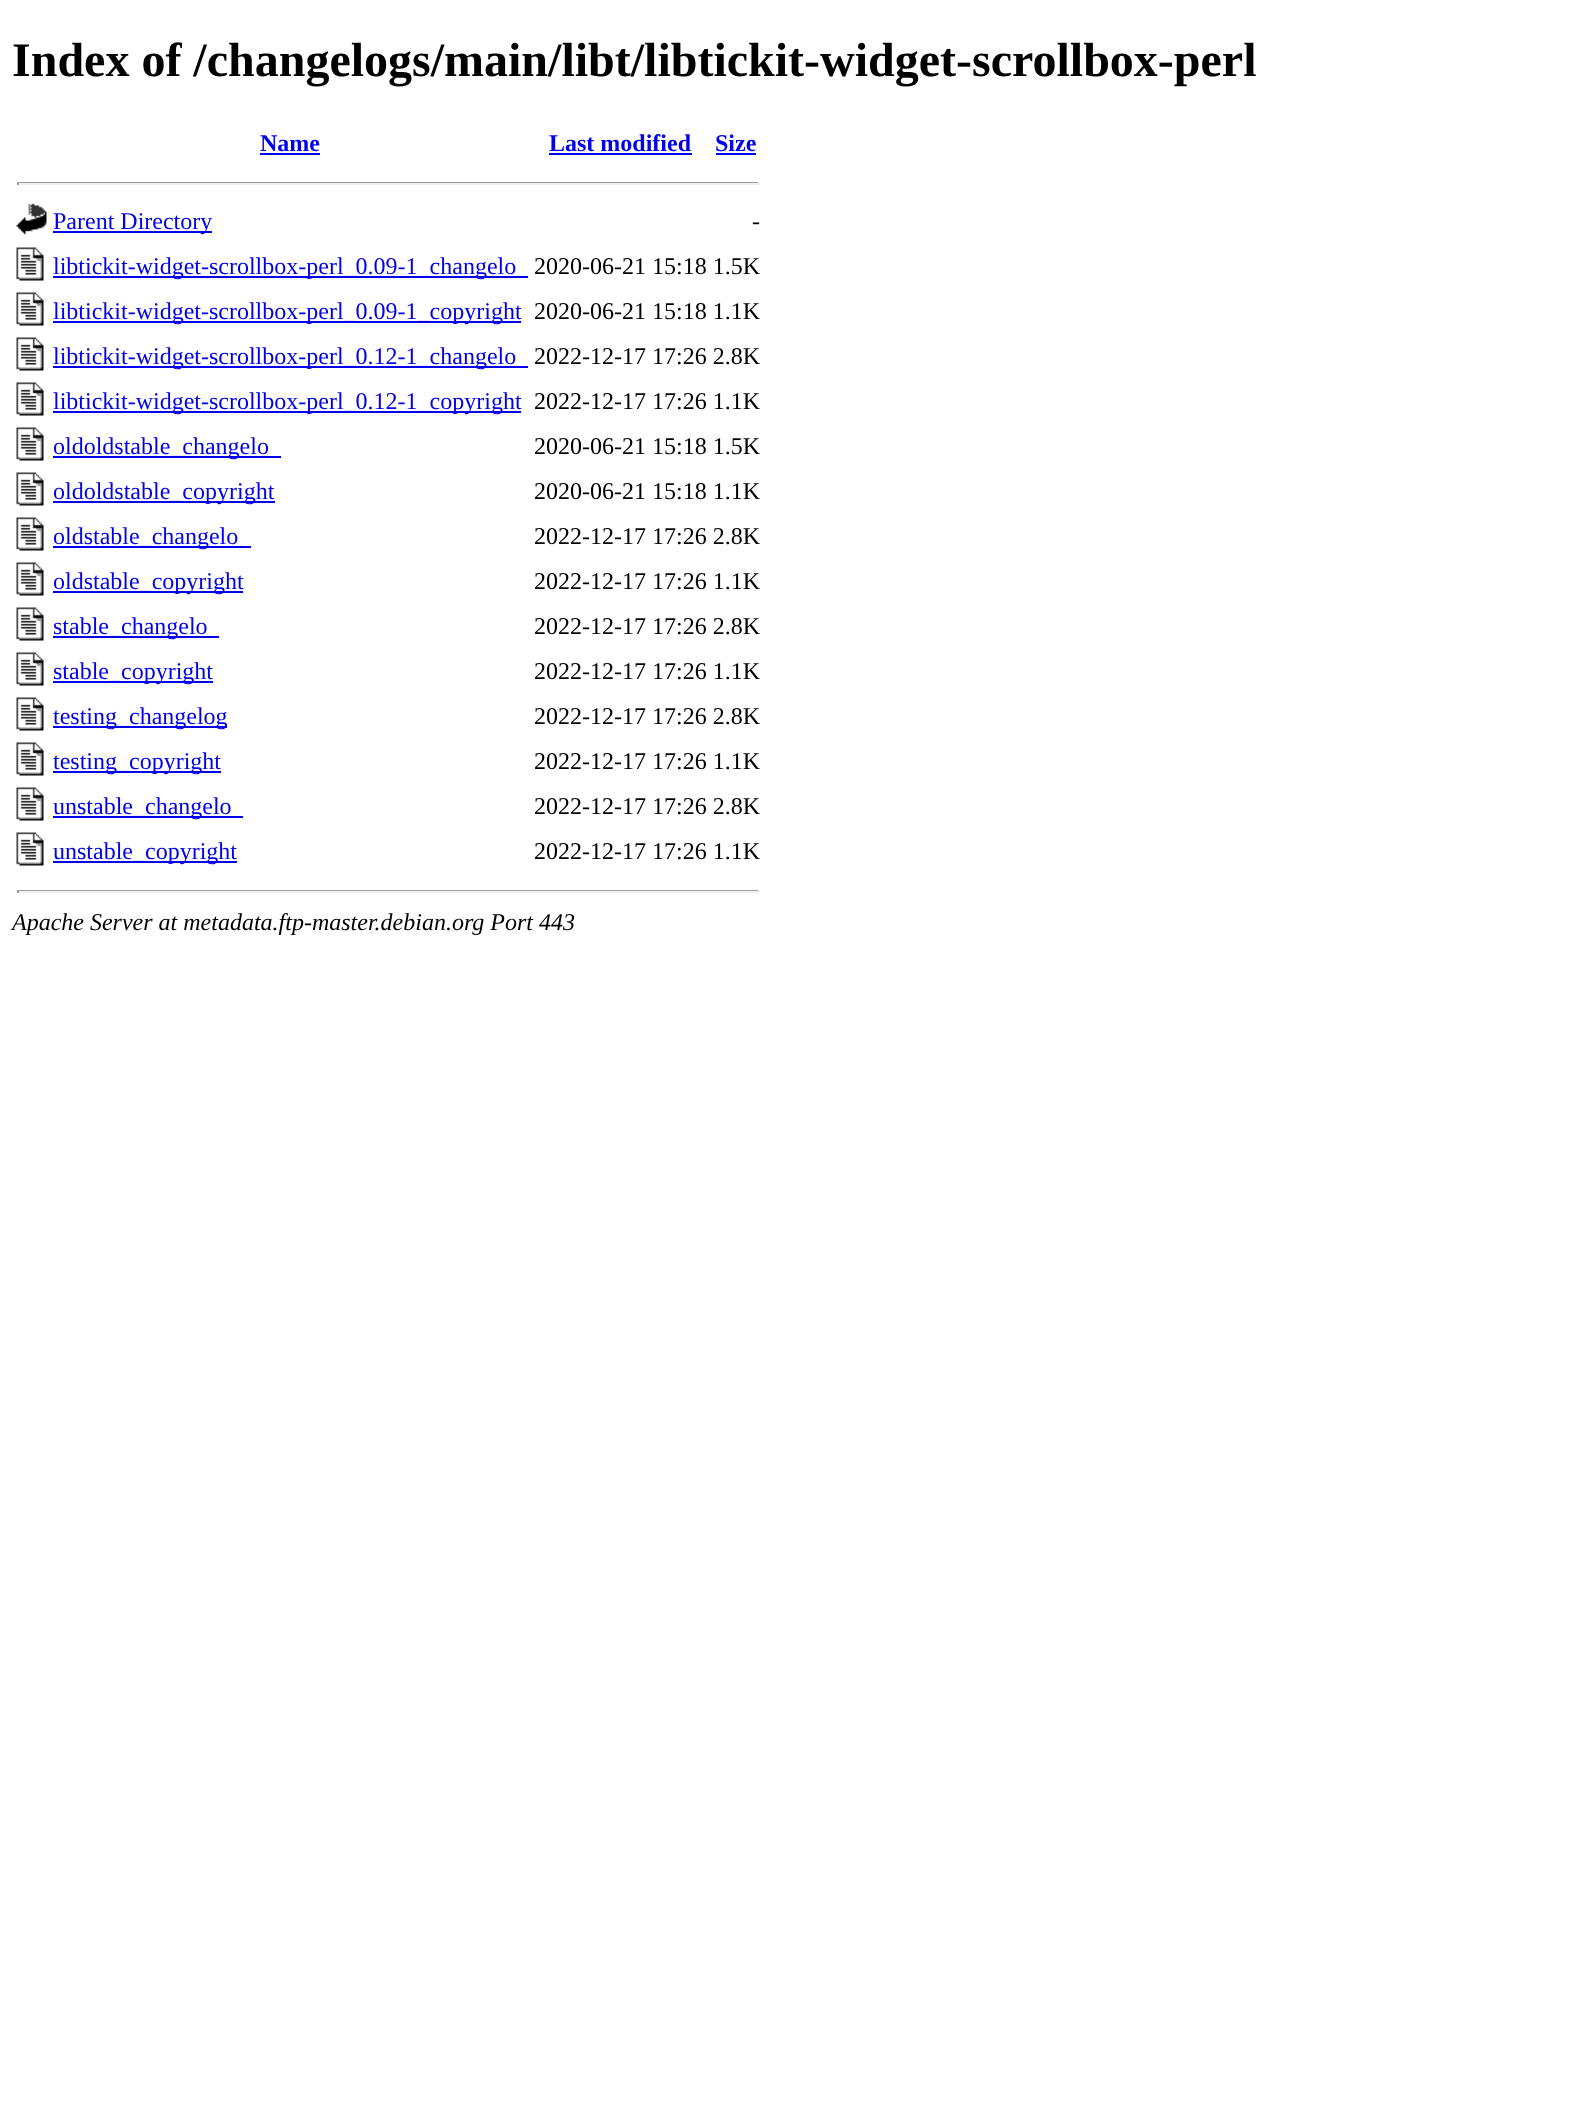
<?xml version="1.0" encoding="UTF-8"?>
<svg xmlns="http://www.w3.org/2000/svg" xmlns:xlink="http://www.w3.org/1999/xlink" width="1595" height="2111">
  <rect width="100%" height="100%" fill="#ffffff" />
  <rect x="260" y="153" width="60" height="2" fill="#0000ee" />
  <rect x="549" y="153" width="143" height="2" fill="#0000ee" />
  <rect x="716" y="153" width="40" height="2" fill="#0000ee" />
  <rect x="17" y="182" width="742" height="1" fill="#9f9f9f" />
  <rect x="758" y="182" width="2" height="3" fill="#eeeeee" />
  <rect x="17" y="183" width="742" height="2" fill="#eeeeee" />
  <rect x="17" y="182" width="2" height="3" fill="#9f9f9f" />
  <image x="16" y="203" width="31" height="32" xlink:href="image1.png" />
  <rect x="53" y="231" width="159" height="2" fill="#0000ee" />
  <image x="16" y="247" width="28" height="34" xlink:href="image2.png" />
  <rect x="53" y="276" width="475" height="2" fill="#0000ee" />
  <image x="16" y="292" width="28" height="34" xlink:href="image2.png" />
  <rect x="53" y="321" width="468" height="2" fill="#0000ee" />
  <image x="16" y="337" width="28" height="34" xlink:href="image2.png" />
  <rect x="53" y="366" width="475" height="2" fill="#0000ee" />
  <image x="16" y="382" width="28" height="34" xlink:href="image2.png" />
  <rect x="53" y="411" width="468" height="2" fill="#0000ee" />
  <image x="16" y="427" width="28" height="34" xlink:href="image2.png" />
  <rect x="53" y="456" width="228" height="2" fill="#0000ee" />
  <image x="16" y="472" width="28" height="34" xlink:href="image2.png" />
  <rect x="53" y="501" width="222" height="2" fill="#0000ee" />
  <image x="16" y="517" width="28" height="34" xlink:href="image2.png" />
  <rect x="53" y="546" width="198" height="2" fill="#0000ee" />
  <image x="16" y="562" width="28" height="34" xlink:href="image2.png" />
  <rect x="53" y="591" width="190" height="2" fill="#0000ee" />
  <image x="16" y="607" width="28" height="34" xlink:href="image2.png" />
  <rect x="53" y="636" width="166" height="2" fill="#0000ee" />
  <image x="16" y="652" width="28" height="34" xlink:href="image2.png" />
  <rect x="53" y="681" width="160" height="2" fill="#0000ee" />
  <image x="16" y="697" width="28" height="34" xlink:href="image2.png" />
  <rect x="53" y="726" width="174" height="2" fill="#0000ee" />
  <image x="16" y="742" width="28" height="34" xlink:href="image2.png" />
  <rect x="53" y="771" width="168" height="2" fill="#0000ee" />
  <image x="16" y="787" width="28" height="34" xlink:href="image2.png" />
  <rect x="53" y="816" width="190" height="2" fill="#0000ee" />
  <image x="16" y="832" width="28" height="34" xlink:href="image2.png" />
  <rect x="53" y="861" width="184" height="2" fill="#0000ee" />
  <rect x="17" y="890" width="742" height="1" fill="#9f9f9f" />
  <rect x="758" y="890" width="2" height="3" fill="#eeeeee" />
  <rect x="17" y="891" width="742" height="2" fill="#eeeeee" />
  <rect x="17" y="890" width="2" height="3" fill="#9f9f9f" />
  <text x="12" y="76" style="font-family: Liberation Serif; font-size: 48px; font-weight: bold; fill: #000000">Index of /changelogs/main/libt/libtickit-widget-scrollbox-perl</text>
  <text x="260" y="151" style="font-family: Liberation Serif; font-size: 24px; font-weight: bold; fill: #0000ee">Name</text>
  <text x="549" y="151" style="font-family: Liberation Serif; font-size: 24px; font-weight: bold; fill: #0000ee">Last modified</text>
  <text x="715" y="151" style="font-family: Liberation Serif; font-size: 24px; font-weight: bold; fill: #0000ee">Size</text>
  <text x="53" y="229" style="font-family: Liberation Serif; font-size: 24px; fill: #0000ee">Parent Directory</text>
  <text x="752" y="229" style="font-family: Liberation Serif; font-size: 24px; fill: #000000">-</text>
  <text x="53" y="274" style="font-family: Liberation Serif; font-size: 24px; fill: #0000ee">libtickit-widget-scrollbox-perl_0.09-1_changelo</text>
  <text x="534" y="274" style="font-family: Liberation Serif; font-size: 24px; fill: #000000">2020-06-21 15:18 1.5K</text>
  <text x="53" y="319" style="font-family: Liberation Serif; font-size: 24px; fill: #0000ee">libtickit-widget-scrollbox-perl_0.09-1_copyright</text>
  <text x="534" y="319" style="font-family: Liberation Serif; font-size: 24px; fill: #000000">2020-06-21 15:18 1.1K</text>
  <text x="53" y="364" style="font-family: Liberation Serif; font-size: 24px; fill: #0000ee">libtickit-widget-scrollbox-perl_0.12-1_changelo</text>
  <text x="534" y="364" style="font-family: Liberation Serif; font-size: 24px; fill: #000000">2022-12-17 17:26 2.8K</text>
  <text x="53" y="409" style="font-family: Liberation Serif; font-size: 24px; fill: #0000ee">libtickit-widget-scrollbox-perl_0.12-1_copyright</text>
  <text x="534" y="409" style="font-family: Liberation Serif; font-size: 24px; fill: #000000">2022-12-17 17:26 1.1K</text>
  <text x="53" y="454" style="font-family: Liberation Serif; font-size: 24px; fill: #0000ee">oldoldstable_changelo</text>
  <text x="534" y="454" style="font-family: Liberation Serif; font-size: 24px; fill: #000000">2020-06-21 15:18 1.5K</text>
  <text x="53" y="499" style="font-family: Liberation Serif; font-size: 24px; fill: #0000ee">oldoldstable_copyright</text>
  <text x="534" y="499" style="font-family: Liberation Serif; font-size: 24px; fill: #000000">2020-06-21 15:18 1.1K</text>
  <text x="53" y="544" style="font-family: Liberation Serif; font-size: 24px; fill: #0000ee">oldstable_changelo</text>
  <text x="534" y="544" style="font-family: Liberation Serif; font-size: 24px; fill: #000000">2022-12-17 17:26 2.8K</text>
  <text x="53" y="589" style="font-family: Liberation Serif; font-size: 24px; fill: #0000ee">oldstable_copyright</text>
  <text x="534" y="589" style="font-family: Liberation Serif; font-size: 24px; fill: #000000">2022-12-17 17:26 1.1K</text>
  <text x="53" y="634" style="font-family: Liberation Serif; font-size: 24px; fill: #0000ee">stable_changelo</text>
  <text x="534" y="634" style="font-family: Liberation Serif; font-size: 24px; fill: #000000">2022-12-17 17:26 2.8K</text>
  <text x="53" y="679" style="font-family: Liberation Serif; font-size: 24px; fill: #0000ee">stable_copyright</text>
  <text x="534" y="679" style="font-family: Liberation Serif; font-size: 24px; fill: #000000">2022-12-17 17:26 1.1K</text>
  <text x="53" y="724" style="font-family: Liberation Serif; font-size: 24px; fill: #0000ee">testing_changelog</text>
  <text x="534" y="724" style="font-family: Liberation Serif; font-size: 24px; fill: #000000">2022-12-17 17:26 2.8K</text>
  <text x="53" y="769" style="font-family: Liberation Serif; font-size: 24px; fill: #0000ee">testing_copyright</text>
  <text x="534" y="769" style="font-family: Liberation Serif; font-size: 24px; fill: #000000">2022-12-17 17:26 1.1K</text>
  <text x="53" y="814" style="font-family: Liberation Serif; font-size: 24px; fill: #0000ee">unstable_changelo</text>
  <text x="534" y="814" style="font-family: Liberation Serif; font-size: 24px; fill: #000000">2022-12-17 17:26 2.8K</text>
  <text x="53" y="859" style="font-family: Liberation Serif; font-size: 24px; fill: #0000ee">unstable_copyright</text>
  <text x="534" y="859" style="font-family: Liberation Serif; font-size: 24px; fill: #000000">2022-12-17 17:26 1.1K</text>
  <text x="12" y="930" style="font-family: Liberation Serif; font-size: 24px; font-style: italic; fill: #000000">Apache Server at metadata.ftp-master.debian.org Port 443</text>
</svg>
